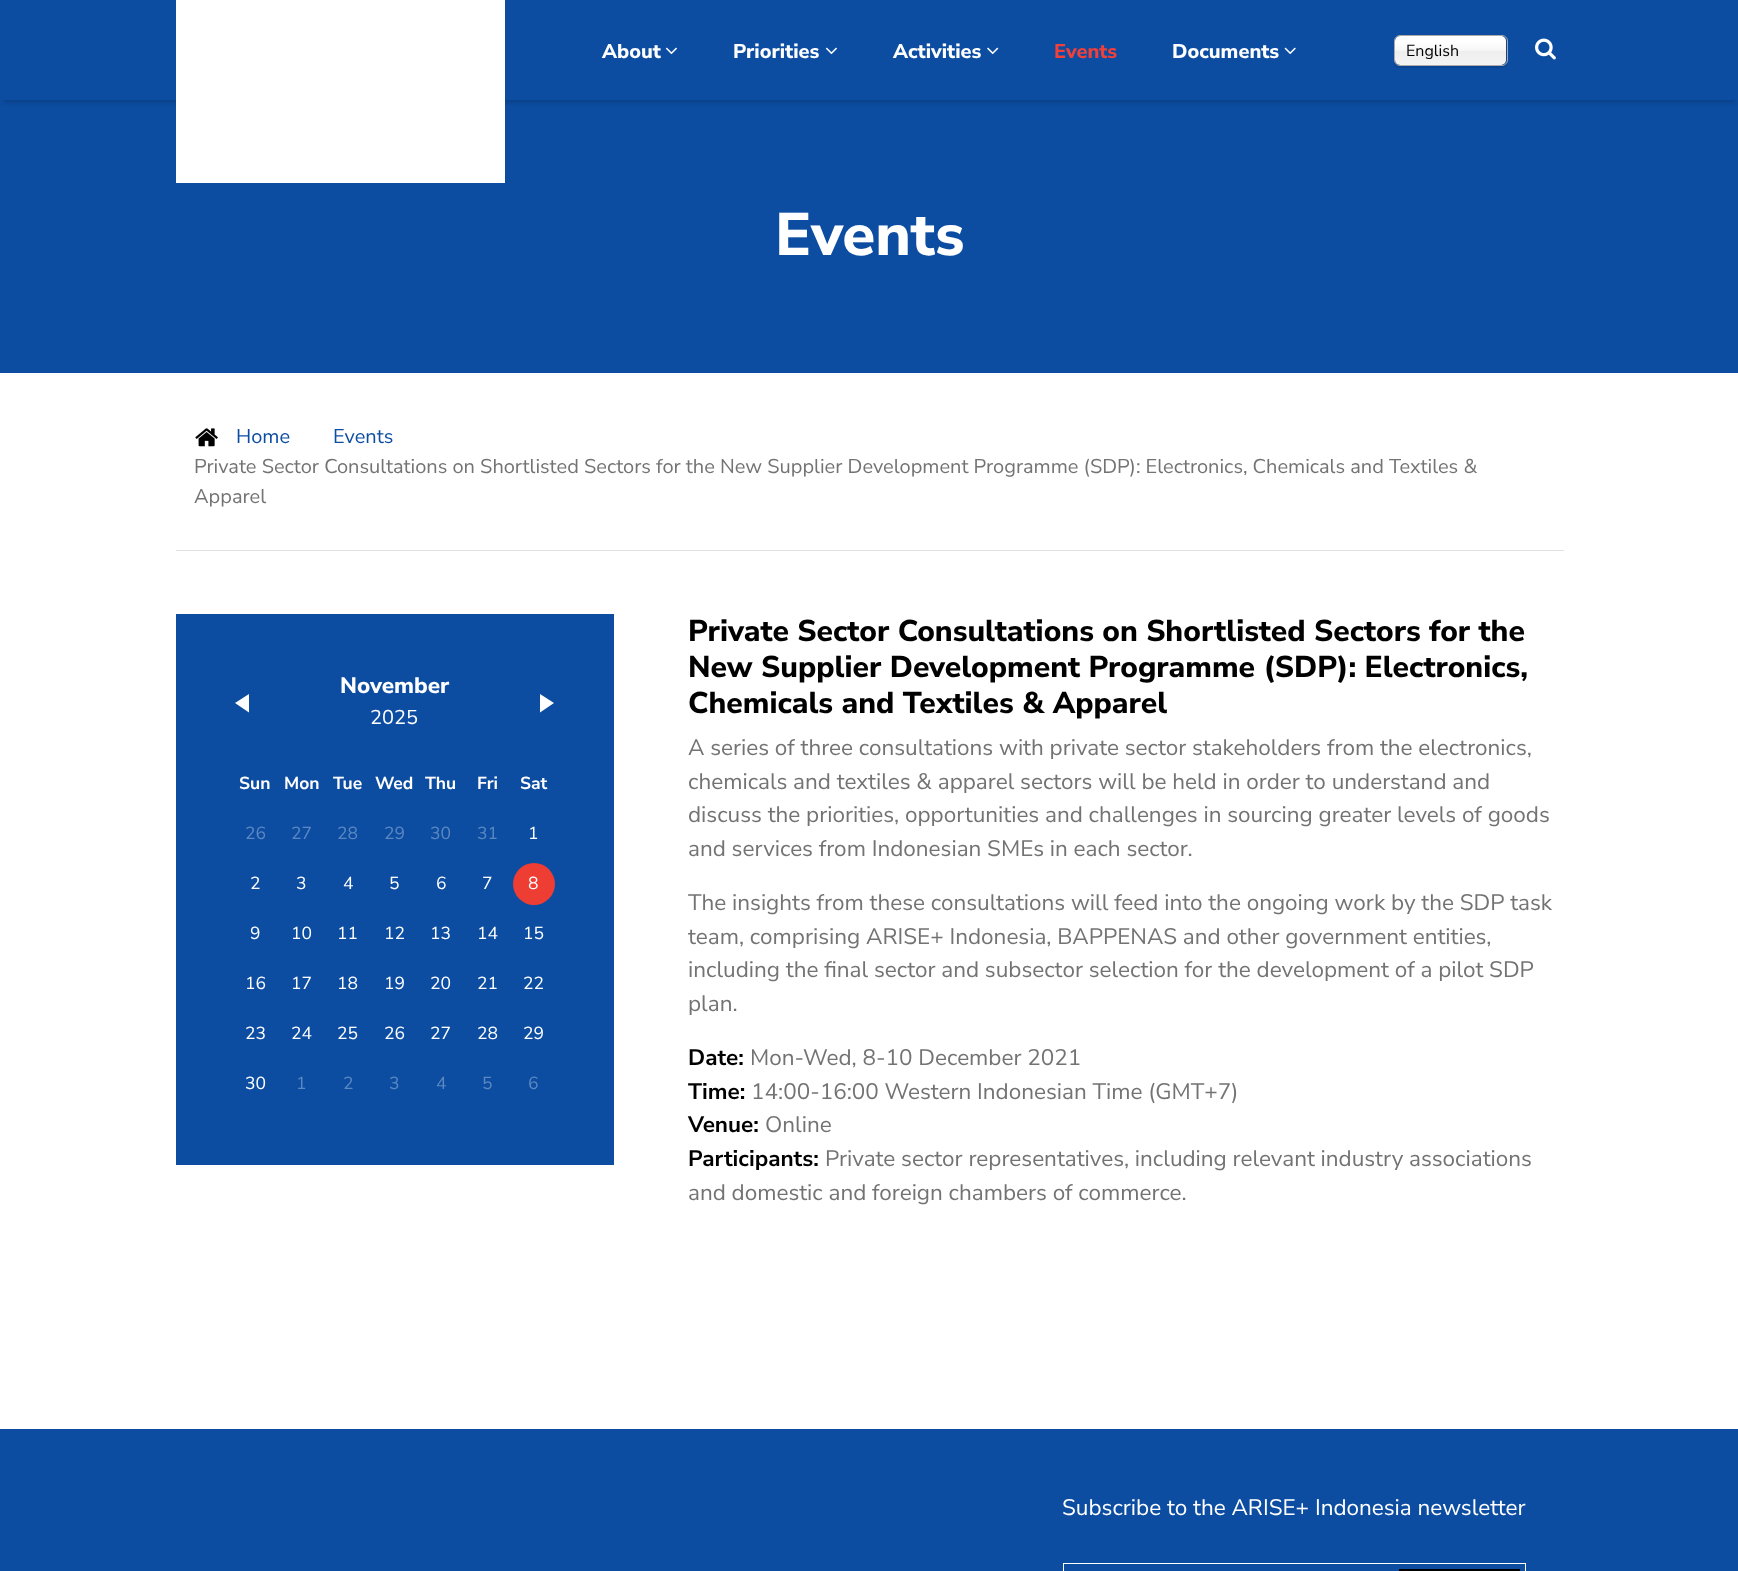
<?xml version="1.0" encoding="UTF-8"?>
<svg xmlns="http://www.w3.org/2000/svg" xmlns:xlink="http://www.w3.org/1999/xlink" width="1738" height="1571">
  <defs>
    <clipPath id="clip1"><rect x="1" y="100" width="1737" height="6" /></clipPath>
    <linearGradient id="g1" gradientUnits="userSpaceOnUse" x1="1451" y1="36" x2="1451" y2="65"><stop offset="0.2" stop-color="#ffffff" /><stop offset="0.5" stop-color="#f6f6f6" /><stop offset="0.52" stop-color="#eeeeee" /><stop offset="1" stop-color="#f4f4f4" /></linearGradient>
  </defs>
  <rect width="100%" height="100%" fill="#ffffff" />
  <rect width="1738" height="373" fill="#0c4da2" />
  <g clip-path="url(#clip1)">
    <rect x="3" y="8" width="1733" height="95" fill="#000000" fill-opacity="0.15" filter="blur(2.5px)" />
  </g>
  <rect x="176" width="329" height="183" fill="#ffffff" />
  <image x="665" y="47" width="12" height="8" xlink:href="image1.png" />
  <image x="825" y="47" width="12" height="8" xlink:href="image1.png" />
  <image x="987" y="47" width="12" height="8" xlink:href="image2.png" />
  <image x="1284" y="47" width="12" height="8" xlink:href="image3.png" />
  <rect x="1394" y="36" width="114" height="32" rx="6" fill="#000000" fill-opacity="0.1" filter="blur(0.5px)" />
  <rect x="1395" y="36" width="111" height="29" rx="5" fill="url(#g1)" />
  <rect x="1394.5" y="35.5" width="113" height="30" rx="5.5" fill="none" stroke="#aaaaaa" />
  <image x="1535" y="38" width="21" height="22" xlink:href="image4.png" />
  <rect x="176" y="550" width="1388" height="1" fill="#e2e2e2" />
  <image x="195" y="428" width="23" height="19" xlink:href="image5.png" />
  <rect x="176" y="614" width="438" height="551" fill="#0c4da2" />
  <path d="M 235 703 l 14 -9 v 18.5" fill="#ffffff" />
  <path d="M 540 694 l 14 9 l -14 9.5" fill="#ffffff" />
  <circle cx="534" cy="884" r="21" fill="#ee3d33" />
  <rect y="1429" width="1738" height="142" fill="#0c4da2" />
  <rect x="1063.5" y="1563.5" width="462" height="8" fill="none" stroke="#ffffff" />
  <rect x="1399" y="1569" width="121" height="2" fill="#000000" />
  <text x="602" y="58" style="font-family: Nunito Sans; font-size: 20px; font-weight: 800; fill: #ffffff">About</text>
  <text x="733" y="58" style="font-family: Nunito Sans; font-size: 20px; font-weight: 800; fill: #ffffff">Priorities</text>
  <text x="893" y="58" style="font-family: Nunito Sans; font-size: 20px; font-weight: 800; fill: #ffffff">Activities</text>
  <text x="1054" y="58" style="font-family: Nunito Sans; font-size: 20px; font-weight: 800; fill: #f1403a">Events</text>
  <text x="1172" y="58" style="font-family: Nunito Sans; font-size: 20px; font-weight: 800; fill: #ffffff">Documents</text>
  <text x="1406" y="56" style="font-family: Nunito Sans; font-size: 16px; fill: #000000">English</text>
  <text x="775" y="255" style="font-family: Nunito Sans; font-size: 60px; font-weight: 800; fill: #ffffff">Events</text>
  <text x="236" y="443" style="font-family: Nunito Sans; font-size: 20px; fill: #0c4da2">Home</text>
  <text x="333" y="443" style="font-family: Nunito Sans; font-size: 20px; fill: #0c4da2">Events</text>
  <text x="194" y="473" style="font-family: Nunito Sans; font-size: 20px; fill: #737373">Private Sector Consultations on Shortlisted Sectors for the New Supplier Development Programme (SDP): Electronics, Chemicals and Textiles &amp;</text>
  <text x="194" y="503" style="font-family: Nunito Sans; font-size: 20px; fill: #737373">Apparel</text>
  <text x="340" y="693" style="font-family: Nunito Sans; font-size: 22.5px; font-weight: 800; fill: #ffffff">November</text>
  <text x="370" y="724" style="font-family: Nunito Sans; font-size: 20px; fill: #ffffff">2025</text>
  <text x="239" y="789" style="font-family: Nunito Sans; font-size: 17.5px; font-weight: bold; fill: #ffffff">Sun</text>
  <text x="284" y="789" style="font-family: Nunito Sans; font-size: 17.5px; font-weight: bold; fill: #ffffff">Mon</text>
  <text x="333" y="789" style="font-family: Nunito Sans; font-size: 17.5px; font-weight: bold; fill: #ffffff">Tue</text>
  <text x="375" y="789" style="font-family: Nunito Sans; font-size: 17.5px; font-weight: bold; fill: #ffffff">Wed</text>
  <text x="425" y="789" style="font-family: Nunito Sans; font-size: 17.5px; font-weight: bold; fill: #ffffff">Thu</text>
  <text x="477" y="789" style="font-family: Nunito Sans; font-size: 17.5px; font-weight: bold; fill: #ffffff">Fri</text>
  <text x="520" y="789" style="font-family: Nunito Sans; font-size: 17.5px; font-weight: bold; fill: #ffffff">Sat</text>
  <text x="245" y="839" style="font-family: Nunito Sans; font-size: 17.5px; fill: #5c88c1">26</text>
  <text x="291" y="839" style="font-family: Nunito Sans; font-size: 17.5px; fill: #5c88c1">27</text>
  <text x="337" y="839" style="font-family: Nunito Sans; font-size: 17.5px; fill: #5c88c1">28</text>
  <text x="384" y="839" style="font-family: Nunito Sans; font-size: 17.5px; fill: #5c88c1">29</text>
  <text x="430" y="839" style="font-family: Nunito Sans; font-size: 17.5px; fill: #5c88c1">30</text>
  <text x="477" y="839" style="font-family: Nunito Sans; font-size: 17.5px; fill: #5c88c1">31</text>
  <text x="528" y="839" style="font-family: Nunito Sans; font-size: 17.5px; fill: #ffffff">1</text>
  <text x="250" y="889" style="font-family: Nunito Sans; font-size: 17.5px; fill: #ffffff">2</text>
  <text x="296" y="889" style="font-family: Nunito Sans; font-size: 17.5px; fill: #ffffff">3</text>
  <text x="343" y="889" style="font-family: Nunito Sans; font-size: 17.5px; fill: #ffffff">4</text>
  <text x="389" y="889" style="font-family: Nunito Sans; font-size: 17.5px; fill: #ffffff">5</text>
  <text x="436" y="889" style="font-family: Nunito Sans; font-size: 17.5px; fill: #ffffff">6</text>
  <text x="482" y="889" style="font-family: Nunito Sans; font-size: 17.5px; fill: #ffffff">7</text>
  <text x="528" y="889" style="font-family: Nunito Sans; font-size: 17.5px; fill: #ffffff">8</text>
  <text x="250" y="939" style="font-family: Nunito Sans; font-size: 17.5px; fill: #ffffff">9</text>
  <text x="291" y="939" style="font-family: Nunito Sans; font-size: 17.5px; fill: #ffffff">10</text>
  <text x="337" y="939" style="font-family: Nunito Sans; font-size: 17.5px; fill: #ffffff">11</text>
  <text x="384" y="939" style="font-family: Nunito Sans; font-size: 17.5px; fill: #ffffff">12</text>
  <text x="430" y="939" style="font-family: Nunito Sans; font-size: 17.5px; fill: #ffffff">13</text>
  <text x="477" y="939" style="font-family: Nunito Sans; font-size: 17.5px; fill: #ffffff">14</text>
  <text x="523" y="939" style="font-family: Nunito Sans; font-size: 17.5px; fill: #ffffff">15</text>
  <text x="245" y="989" style="font-family: Nunito Sans; font-size: 17.5px; fill: #ffffff">16</text>
  <text x="291" y="989" style="font-family: Nunito Sans; font-size: 17.5px; fill: #ffffff">17</text>
  <text x="337" y="989" style="font-family: Nunito Sans; font-size: 17.5px; fill: #ffffff">18</text>
  <text x="384" y="989" style="font-family: Nunito Sans; font-size: 17.5px; fill: #ffffff">19</text>
  <text x="430" y="989" style="font-family: Nunito Sans; font-size: 17.5px; fill: #ffffff">20</text>
  <text x="477" y="989" style="font-family: Nunito Sans; font-size: 17.5px; fill: #ffffff">21</text>
  <text x="523" y="989" style="font-family: Nunito Sans; font-size: 17.5px; fill: #ffffff">22</text>
  <text x="245" y="1039" style="font-family: Nunito Sans; font-size: 17.5px; fill: #ffffff">23</text>
  <text x="291" y="1039" style="font-family: Nunito Sans; font-size: 17.5px; fill: #ffffff">24</text>
  <text x="337" y="1039" style="font-family: Nunito Sans; font-size: 17.5px; fill: #ffffff">25</text>
  <text x="384" y="1039" style="font-family: Nunito Sans; font-size: 17.5px; fill: #ffffff">26</text>
  <text x="430" y="1039" style="font-family: Nunito Sans; font-size: 17.5px; fill: #ffffff">27</text>
  <text x="477" y="1039" style="font-family: Nunito Sans; font-size: 17.5px; fill: #ffffff">28</text>
  <text x="523" y="1039" style="font-family: Nunito Sans; font-size: 17.5px; fill: #ffffff">29</text>
  <text x="245" y="1089" style="font-family: Nunito Sans; font-size: 17.5px; fill: #ffffff">30</text>
  <text x="296" y="1089" style="font-family: Nunito Sans; font-size: 17.5px; fill: #5c88c1">1</text>
  <text x="343" y="1089" style="font-family: Nunito Sans; font-size: 17.5px; fill: #5c88c1">2</text>
  <text x="389" y="1089" style="font-family: Nunito Sans; font-size: 17.5px; fill: #5c88c1">3</text>
  <text x="436" y="1089" style="font-family: Nunito Sans; font-size: 17.5px; fill: #5c88c1">4</text>
  <text x="482" y="1089" style="font-family: Nunito Sans; font-size: 17.5px; fill: #5c88c1">5</text>
  <text x="528" y="1089" style="font-family: Nunito Sans; font-size: 17.5px; fill: #5c88c1">6</text>
  <text x="688" y="641" style="font-family: Nunito Sans; font-size: 30px; font-weight: 800; fill: #000000">Private Sector Consultations on Shortlisted Sectors for the</text>
  <text x="688" y="677" style="font-family: Nunito Sans; font-size: 30px; font-weight: 800; fill: #000000">New Supplier Development Programme (SDP): Electronics,</text>
  <text x="688" y="713" style="font-family: Nunito Sans; font-size: 30px; font-weight: 800; fill: #000000">Chemicals and Textiles &amp; Apparel</text>
  <text x="688" y="755" style="font-family: Nunito Sans; font-size: 22.5px; fill: #737373">A series of three consultations with private sector stakeholders from the electronics,</text>
  <text x="688" y="789" style="font-family: Nunito Sans; font-size: 22.5px; fill: #737373">chemicals and textiles &amp; apparel sectors will be held in order to understand and</text>
  <text x="688" y="822" style="font-family: Nunito Sans; font-size: 22.5px; fill: #737373">discuss the priorities, opportunities and challenges in sourcing greater levels of goods</text>
  <text x="688" y="856" style="font-family: Nunito Sans; font-size: 22.5px; fill: #737373">and services from Indonesian SMEs in each sector.</text>
  <text x="688" y="910" style="font-family: Nunito Sans; font-size: 22.5px; fill: #737373">The insights from these consultations will feed into the ongoing work by the SDP task</text>
  <text x="688" y="944" style="font-family: Nunito Sans; font-size: 22.5px; fill: #737373">team, comprising ARISE+ Indonesia, BAPPENAS and other government entities,</text>
  <text x="688" y="977" style="font-family: Nunito Sans; font-size: 22.5px; fill: #737373">including the final sector and subsector selection for the development of a pilot SDP</text>
  <text x="688" y="1011" style="font-family: Nunito Sans; font-size: 22.5px; fill: #737373">plan.</text>
  <text x="688" y="1065" style="font-family: Nunito Sans; font-size: 22.5px; font-weight: bold; fill: #000000">Date:</text>
  <text x="750" y="1065" style="font-family: Nunito Sans; font-size: 22.5px; fill: #737373">Mon-Wed, 8-10 December 2021</text>
  <text x="688" y="1099" style="font-family: Nunito Sans; font-size: 22.5px; font-weight: bold; fill: #000000">Time:</text>
  <text x="751" y="1099" style="font-family: Nunito Sans; font-size: 22.5px; fill: #737373">14:00-16:00 Western Indonesian Time (GMT+7)</text>
  <text x="688" y="1132" style="font-family: Nunito Sans; font-size: 22.5px; font-weight: bold; fill: #000000">Venue:</text>
  <text x="765" y="1132" style="font-family: Nunito Sans; font-size: 22.5px; fill: #737373">Online</text>
  <text x="688" y="1166" style="font-family: Nunito Sans; font-size: 22.5px; font-weight: bold; fill: #000000">Participants:</text>
  <text x="825" y="1166" style="font-family: Nunito Sans; font-size: 22.5px; fill: #737373">Private sector representatives, including relevant industry associations</text>
  <text x="688" y="1200" style="font-family: Nunito Sans; font-size: 22.5px; fill: #737373">and domestic and foreign chambers of commerce.</text>
  <text x="1062" y="1515" style="font-family: Nunito Sans; font-size: 22.5px; fill: #ffffff">Subscribe to the ARISE+ Indonesia newsletter</text>
</svg>
